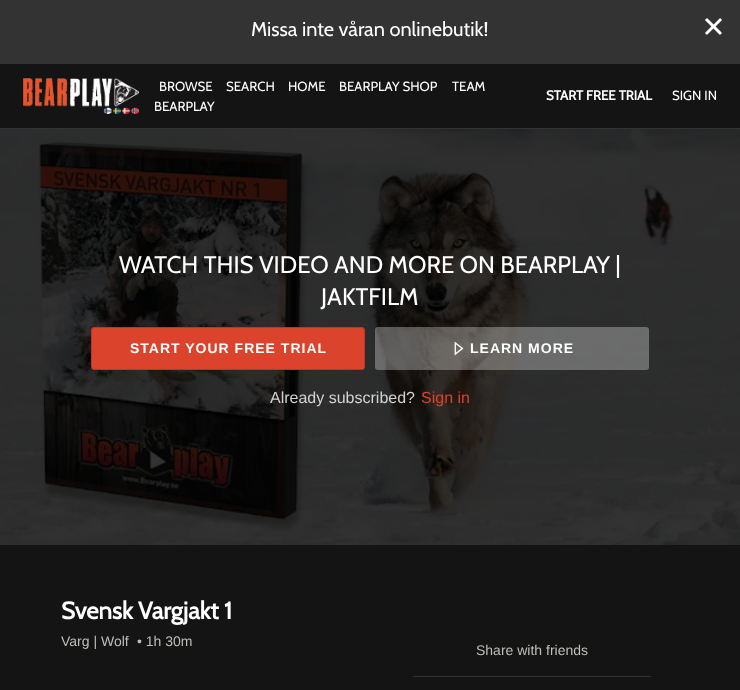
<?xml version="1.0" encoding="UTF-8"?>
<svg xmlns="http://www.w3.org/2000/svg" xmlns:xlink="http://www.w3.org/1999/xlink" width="740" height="690">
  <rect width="100%" height="100%" fill="#141414" />
  <rect width="740" height="64" fill="#333333" />
  <image x="705" y="18" width="17" height="17" xlink:href="image1.png" />
  <rect y="128" width="740" height="1" fill="#323232" />
  <image x="23" y="78" width="116" height="36" xlink:href="image2.png" />
  <image x="0" y="129" width="740" height="416" xlink:href="image3.png" />
  <rect x="91.5" y="327.5" width="273" height="42" rx="2.5" fill="#db432c" stroke="#ba3925" />
  <rect x="375" y="327" width="274" height="43" rx="3" fill="#ffffff" fill-opacity="0.3" />
  <image x="454" y="341" width="10" height="15" xlink:href="image4.png" />
  <rect x="413" y="676" width="238" height="1" fill="#323232" />
  <text x="251" y="36" style="font-family: Cabin; font-size: 20px; fill: #ffffff">Missa inte våran onlinebutik!</text>
  <text x="159" y="91" style="font-family: Cabin; font-size: 13.25px; fill: #ffffff">BROWSE</text>
  <text x="226" y="91" style="font-family: Cabin; font-size: 13.25px; fill: #ffffff">SEARCH</text>
  <text x="288" y="91" style="font-family: Cabin; font-size: 13.25px; fill: #ffffff">HOME</text>
  <text x="339" y="91" style="font-family: Cabin; font-size: 13.25px; fill: #ffffff">BEARPLAY SHOP</text>
  <text x="452" y="91" style="font-family: Cabin; font-size: 13.25px; fill: #ffffff">TEAM</text>
  <text x="154" y="111" style="font-family: Cabin; font-size: 13.25px; fill: #ffffff">BEARPLAY</text>
  <text x="546" y="100" style="font-family: Cabin; font-size: 13.25px; font-weight: bold; fill: #ffffff">START FREE TRIAL</text>
  <text x="672" y="100" style="font-family: Cabin; font-size: 13.25px; fill: #ffffff">SIGN IN</text>
  <text x="119" y="273" style="font-family: Cabin; font-size: 24px; fill: #ffffff">WATCH THIS VIDEO AND MORE ON BEARPLAY |</text>
  <text x="321" y="305" style="font-family: Cabin; font-size: 24px; fill: #ffffff">JAKTFILM</text>
  <text x="130" y="353" style="font-family: Liberation Sans; font-size: 14px; font-weight: bold; letter-spacing: 1px; fill: #ffffff">START YOUR FREE TRIAL</text>
  <text x="470" y="353" style="font-family: Liberation Sans; font-size: 14px; font-weight: bold; letter-spacing: 1px; fill: #ffffff">LEARN MORE</text>
  <text x="270" y="403" style="font-family: Liberation Sans; font-size: 16px; fill: #d3d3d3">Already subscribed?</text>
  <text x="421" y="403" style="font-family: Liberation Sans; font-size: 16px; fill: #db432c">Sign in</text>
  <text x="61" y="619" style="font-family: Cabin; font-size: 24px; font-weight: bold; fill: #ffffff">Svensk Vargjakt 1</text>
  <text x="61" y="646" style="font-family: Liberation Sans; font-size: 14px; fill: #bebebb">Varg | Wolf</text>
  <text x="137" y="646" style="font-family: Liberation Sans; font-size: 14px; fill: #bebebb">• 1h 30m</text>
  <text x="476" y="655" style="font-family: Liberation Sans; font-size: 14px; fill: #bebebb">Share with friends</text>
</svg>
